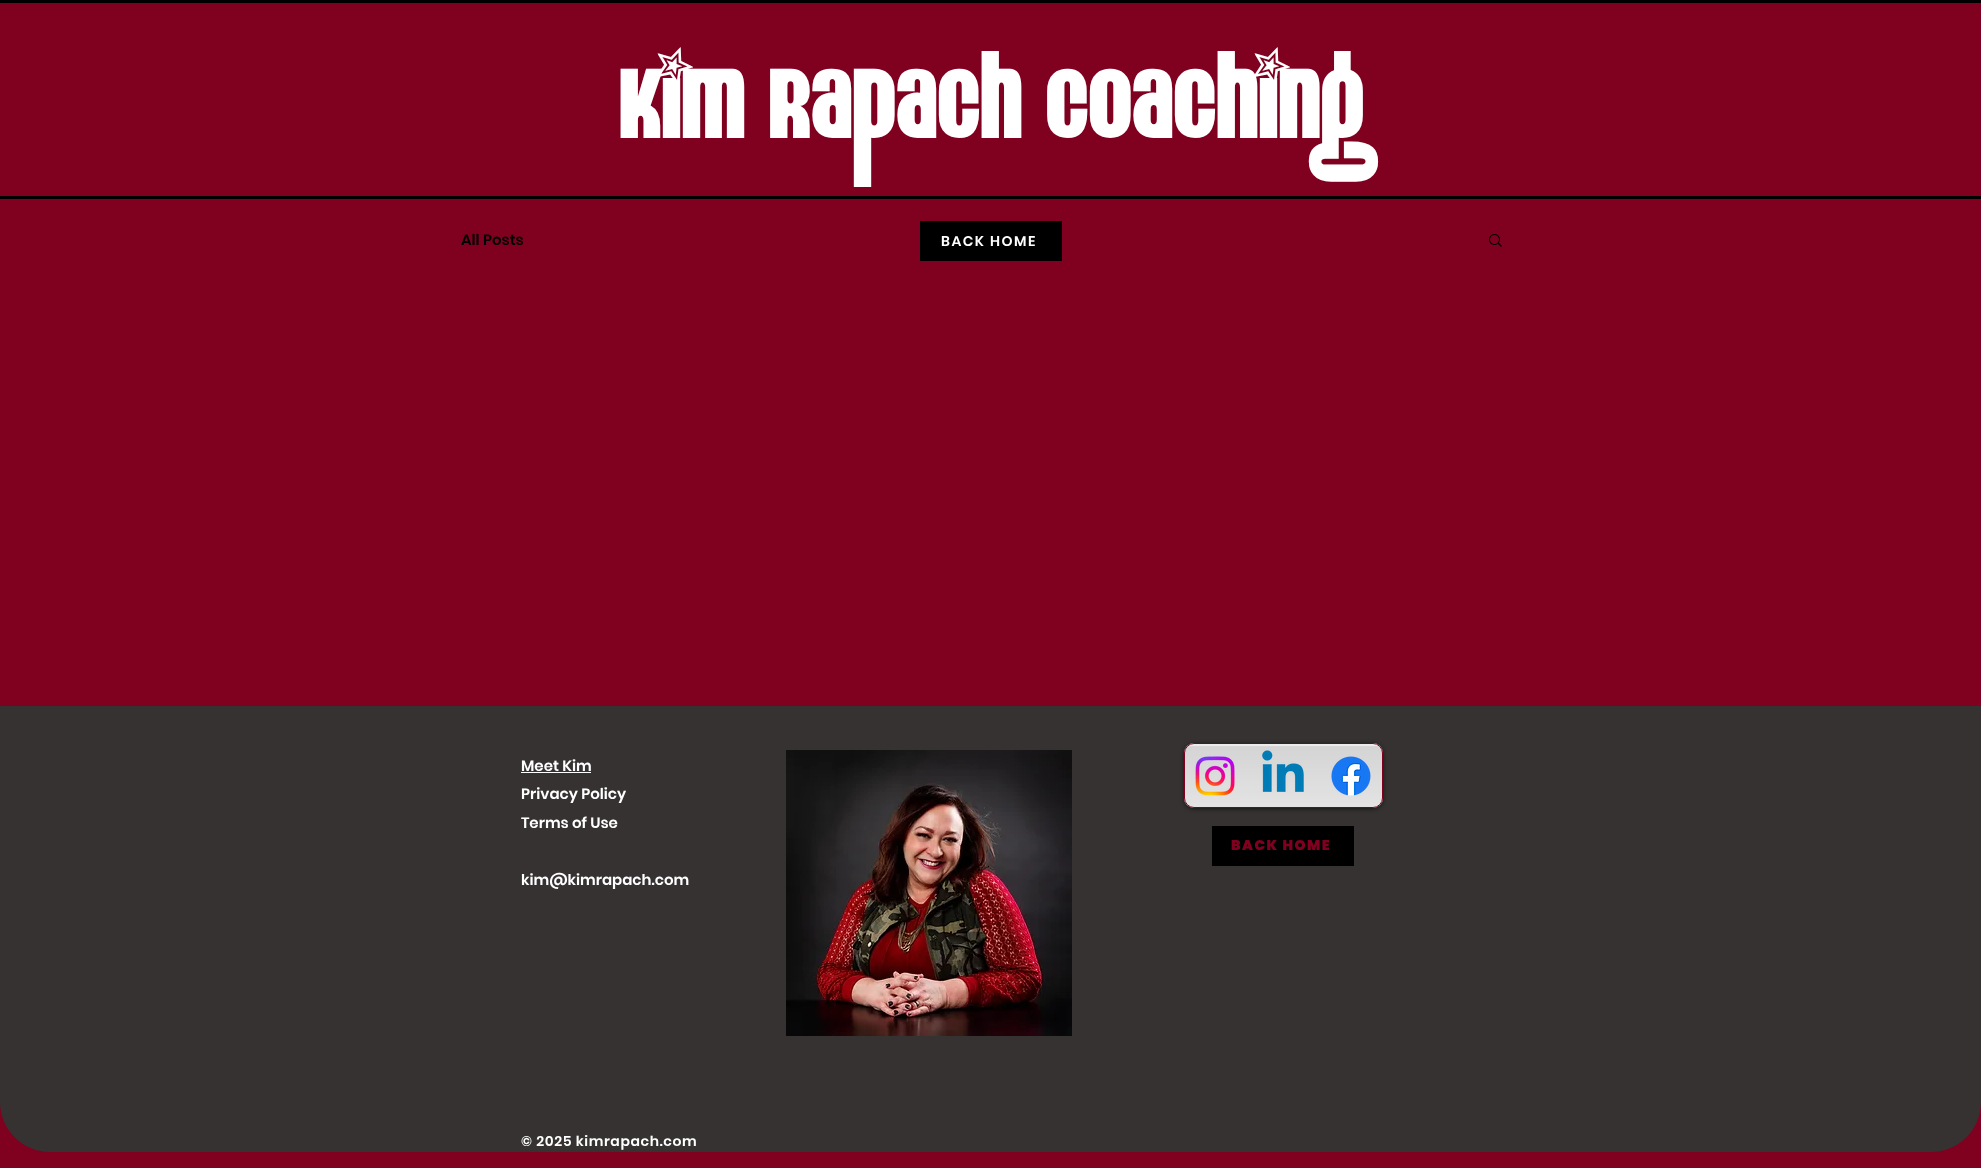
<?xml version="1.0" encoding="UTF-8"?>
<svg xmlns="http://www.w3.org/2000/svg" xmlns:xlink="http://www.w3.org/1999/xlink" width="1981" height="1168">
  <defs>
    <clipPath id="clip1"><path d="M 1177 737 h 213 v 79 h -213 z m 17 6 h 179 c 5.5 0 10 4.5 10 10 v 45 c 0 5.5 -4.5 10 -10 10 h -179 c -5.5 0 -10 -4.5 -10 -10 v -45 c 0 -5.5 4.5 -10 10 -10 z" clip-rule="evenodd" /></clipPath>
  </defs>
  <rect width="100%" height="100%" fill="#800020" />
  <rect width="1981" height="3" fill="#000000" />
  <rect y="196" width="1981" height="3" fill="#000000" />
  <image x="1489" y="234" width="13" height="13" xlink:href="image1.png" />
  <rect x="920" y="221" width="142" height="40" fill="#000000" />
  <path d="M 0 706 h 1981 v 396 c 0 27.5 -22.5 50 -50 50 h -1881 c -27.5 0 -50 -22.5 -50 -50 z" fill="#363232" />
  <image x="786" y="750" width="286" height="286" xlink:href="image2.png" />
  <g clip-path="url(#clip1)">
    <rect x="1184" y="744" width="199" height="65" rx="10" fill="#000000" fill-opacity="0.6" filter="blur(2px)" />
  </g>
  <rect x="1184" y="743" width="199" height="65" rx="10" fill="#ffffff" fill-opacity="0.9" />
  <image x="1184" y="746" width="199" height="62" xlink:href="image3.png" />
  <rect x="1184.5" y="743.5" width="198" height="64" rx="9.5" fill="none" stroke="#800020" />
  <rect x="521" y="772" width="70" height="1" fill="#ffffff" />
  <image x="1195" y="756" width="40" height="40" xlink:href="image4.png" />
  <image x="1262" y="750" width="42" height="42" xlink:href="image5.png" />
  <image x="1331" y="756" width="40" height="40" xlink:href="image6.png" />
  <rect x="1212" y="826" width="142" height="40" fill="#000000" />
  <text x="618" y="138" style="font-family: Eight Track; font-size: 97px; fill: #ffffff">Kim Rapach Coaching</text>
  <text x="461" y="245" style="font-family: Poppins; font-size: 15px; font-weight: 600; fill: #000000">All Posts</text>
  <text x="941" y="246" style="font-family: Poppins; font-size: 14px; font-weight: 600; letter-spacing: 1.5px; fill: #ffffff">BACK HOME</text>
  <text x="521" y="771" style="font-family: Poppins; font-size: 15px; font-weight: 600; fill: #ffffff">Meet Kim</text>
  <text x="521" y="799" style="font-family: Poppins; font-size: 15px; font-weight: 600; fill: #ffffff">Privacy Policy</text>
  <text x="521" y="828" style="font-family: Poppins; font-size: 15px; font-weight: 600; fill: #ffffff">Terms of Use</text>
  <text x="521" y="885" style="font-family: Poppins; font-size: 15px; font-weight: 600; fill: #ffffff">kim@kimrapach.com</text>
  <text x="1231" y="850" style="font-family: Poppins; font-size: 14px; font-weight: 900; letter-spacing: 1.5px; fill: #800020">BACK HOME</text>
  <text x="521" y="1146" style="font-family: Poppins; font-size: 14px; font-weight: 600; letter-spacing: 0.6px; fill: #ffffff">© 2025 kimrapach.com</text>
</svg>
